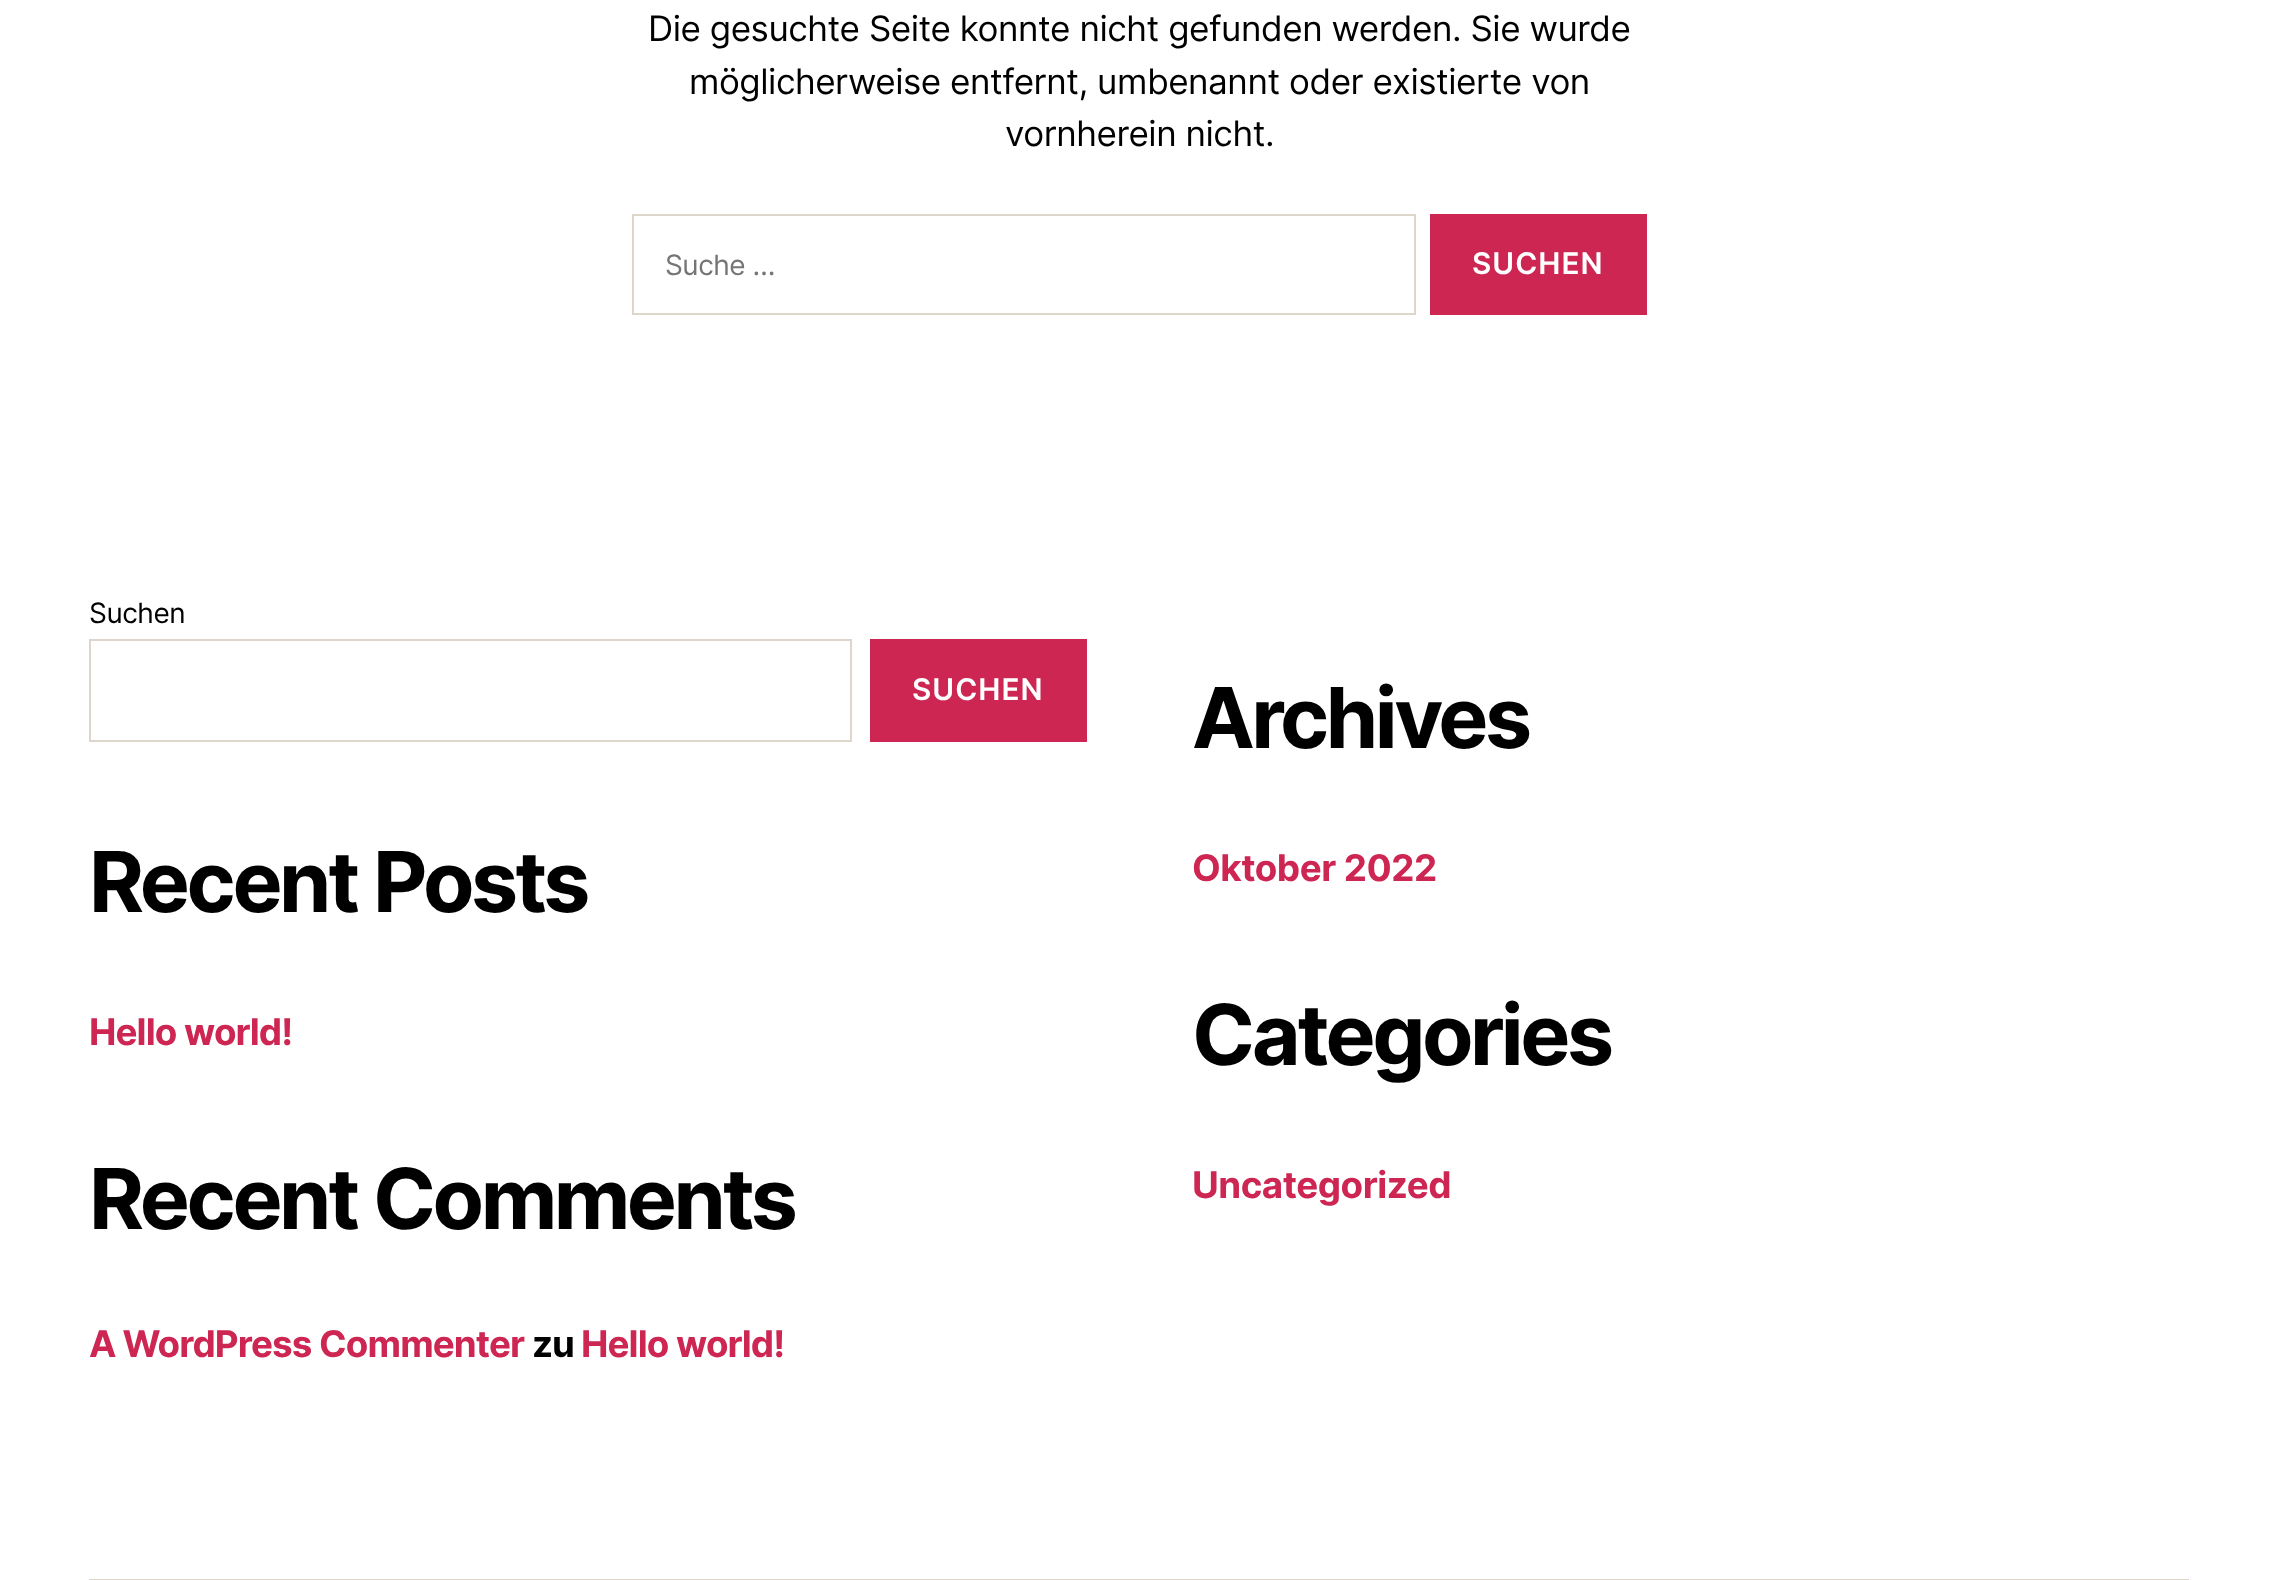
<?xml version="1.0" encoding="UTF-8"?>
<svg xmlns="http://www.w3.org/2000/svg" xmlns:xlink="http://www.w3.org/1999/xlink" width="2278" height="1580">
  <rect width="100%" height="100%" fill="#ffffff" />
  <rect x="633" y="215" width="782" height="99" fill="none" stroke="#dcd7ca" stroke-width="2" />
  <rect x="1430" y="214" width="217" height="101" fill="#cd2653" />
  <rect x="89" y="1579" width="2100" height="1" fill="#dcd7ca" />
  <rect x="90" y="640" width="761" height="101" fill="none" stroke="#dcd7ca" stroke-width="2" />
  <rect x="870" y="639" width="217" height="103" fill="#cd2653" />
  <text x="648" y="41" style="font-family: Inter; font-size: 35px; letter-spacing: -0.47px; fill: #000000">Die gesuchte Seite konnte nicht gefunden werden. Sie wurde</text>
  <text x="689" y="94" style="font-family: Inter; font-size: 35px; letter-spacing: -0.47px; fill: #000000">möglicherweise entfernt, umbenannt oder existierte von</text>
  <text x="1005" y="146" style="font-family: Inter; font-size: 35px; letter-spacing: -0.47px; fill: #000000">vornherein nicht.</text>
  <text x="665" y="275" style="font-family: Inter; font-size: 28px; letter-spacing: -0.5px; fill: #757575">Suche …</text>
  <text x="1472" y="274" style="font-family: Inter; font-size: 29.75px; font-weight: 600; letter-spacing: 1px; fill: #ffffff">SUCHEN</text>
  <text x="89" y="623" style="font-family: Inter; font-size: 28px; letter-spacing: -0.47px; fill: #000000">Suchen</text>
  <text x="912" y="700" style="font-family: Inter; font-size: 29.75px; font-weight: 600; letter-spacing: 1px; fill: #ffffff">SUCHEN</text>
  <text x="89" y="912" style="font-family: Inter; font-size: 84px; font-weight: bold; letter-spacing: -3.5px; fill: #000000">Recent Posts</text>
  <text x="89" y="1045" style="font-family: Inter; font-size: 36.75px; font-weight: bold; letter-spacing: -0.9px; fill: #cd2653">Hello world!</text>
  <text x="89" y="1229" style="font-family: Inter; font-size: 84px; font-weight: bold; letter-spacing: -3.5px; fill: #000000">Recent Comments</text>
  <text x="89" y="1357" style="font-family: Inter; font-size: 36.75px; font-weight: bold; letter-spacing: -0.9px; fill: #cd2653">A WordPress Commenter</text>
  <text x="532" y="1357" style="font-family: Inter; font-size: 36.75px; font-weight: bold; letter-spacing: -0.9px; fill: #000000">zu</text>
  <text x="581" y="1357" style="font-family: Inter; font-size: 36.75px; font-weight: bold; letter-spacing: -0.9px; fill: #cd2653">Hello world!</text>
  <text x="1192" y="748" style="font-family: Inter; font-size: 84px; font-weight: bold; letter-spacing: -3.5px; fill: #000000">Archives</text>
  <text x="1192" y="881" style="font-family: Inter; font-size: 36.75px; font-weight: bold; letter-spacing: -0.47px; fill: #cd2653">Oktober 2022</text>
  <text x="1192" y="1065" style="font-family: Inter; font-size: 84px; font-weight: bold; letter-spacing: -3.5px; fill: #000000">Categories</text>
  <text x="1192" y="1198" style="font-family: Inter; font-size: 36.75px; font-weight: bold; letter-spacing: -0.47px; fill: #cd2653">Uncategorized</text>
</svg>
